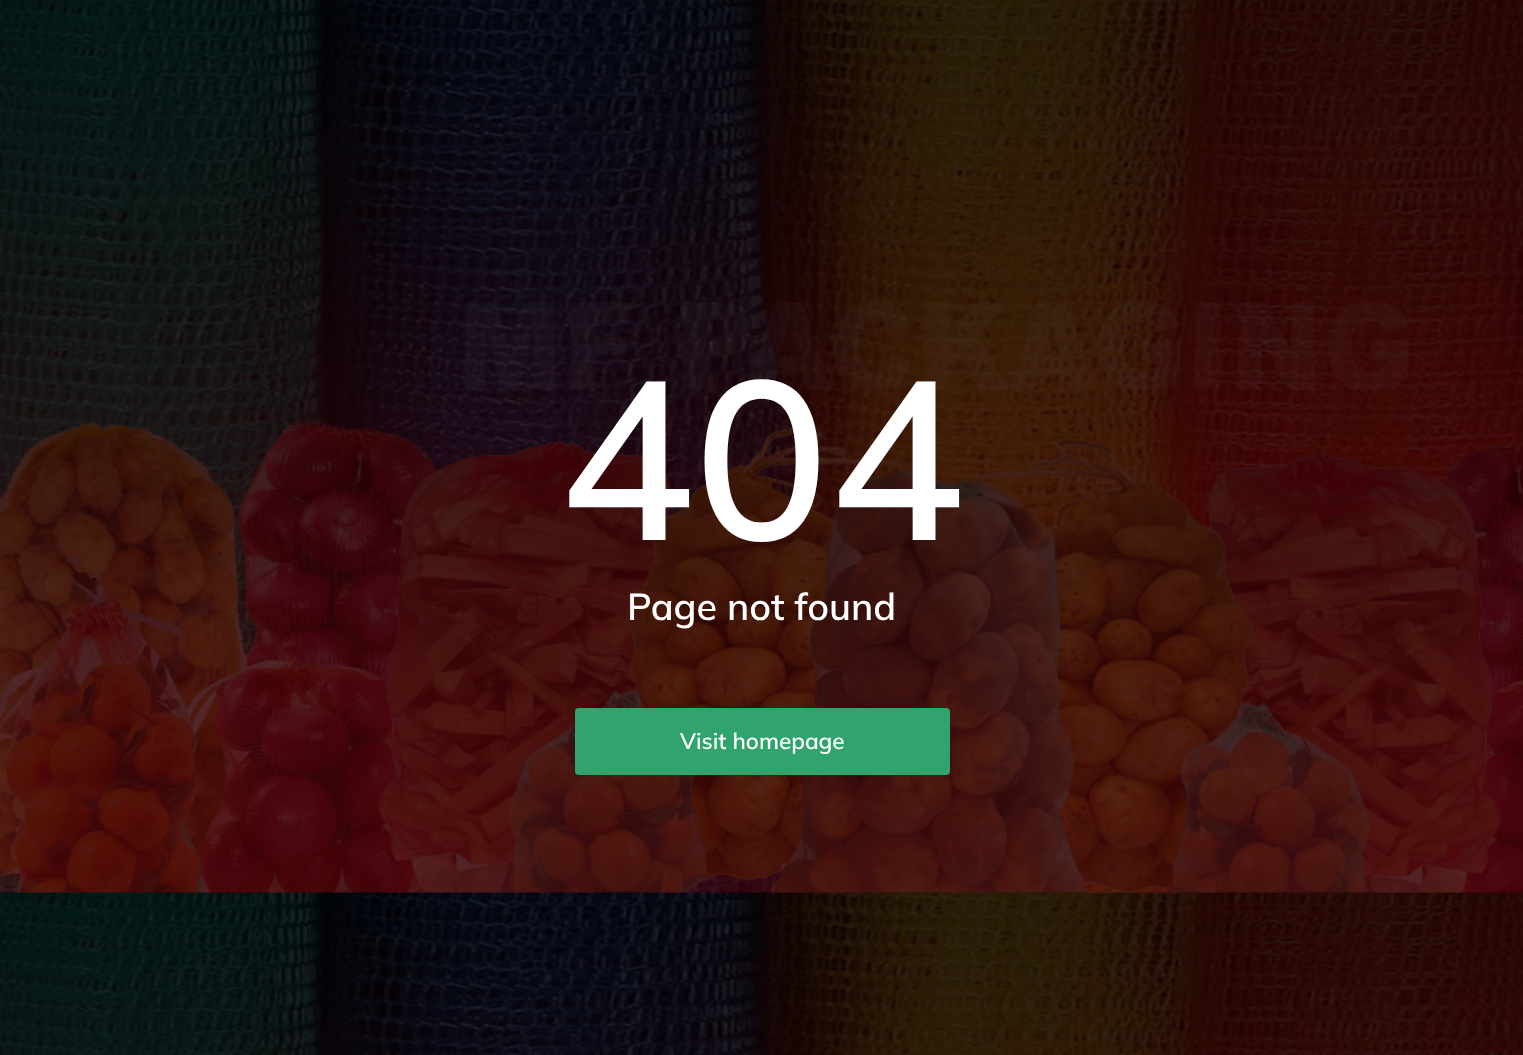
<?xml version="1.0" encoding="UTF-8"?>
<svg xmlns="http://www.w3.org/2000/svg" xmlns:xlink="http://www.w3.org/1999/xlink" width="1523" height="1055">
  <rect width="100%" height="100%" fill="#ffffff" />
  <image x="0" y="0" width="1523" height="1055" xlink:href="image1.png" />
  <rect x="575" y="708" width="375" height="67" rx="4" fill="#30a46c" />
  <text x="559" y="540" style="font-family: Mulish; font-size: 225px; font-weight: 600; fill: #ffffff">404</text>
  <text x="627" y="620" style="font-family: Mulish; font-size: 37.5px; font-weight: 600; fill: #ffffff">Page not found</text>
  <text x="680" y="749" style="font-family: Mulish; font-size: 22.5px; font-weight: 600; fill: #ffffff">Visit homepage</text>
</svg>
